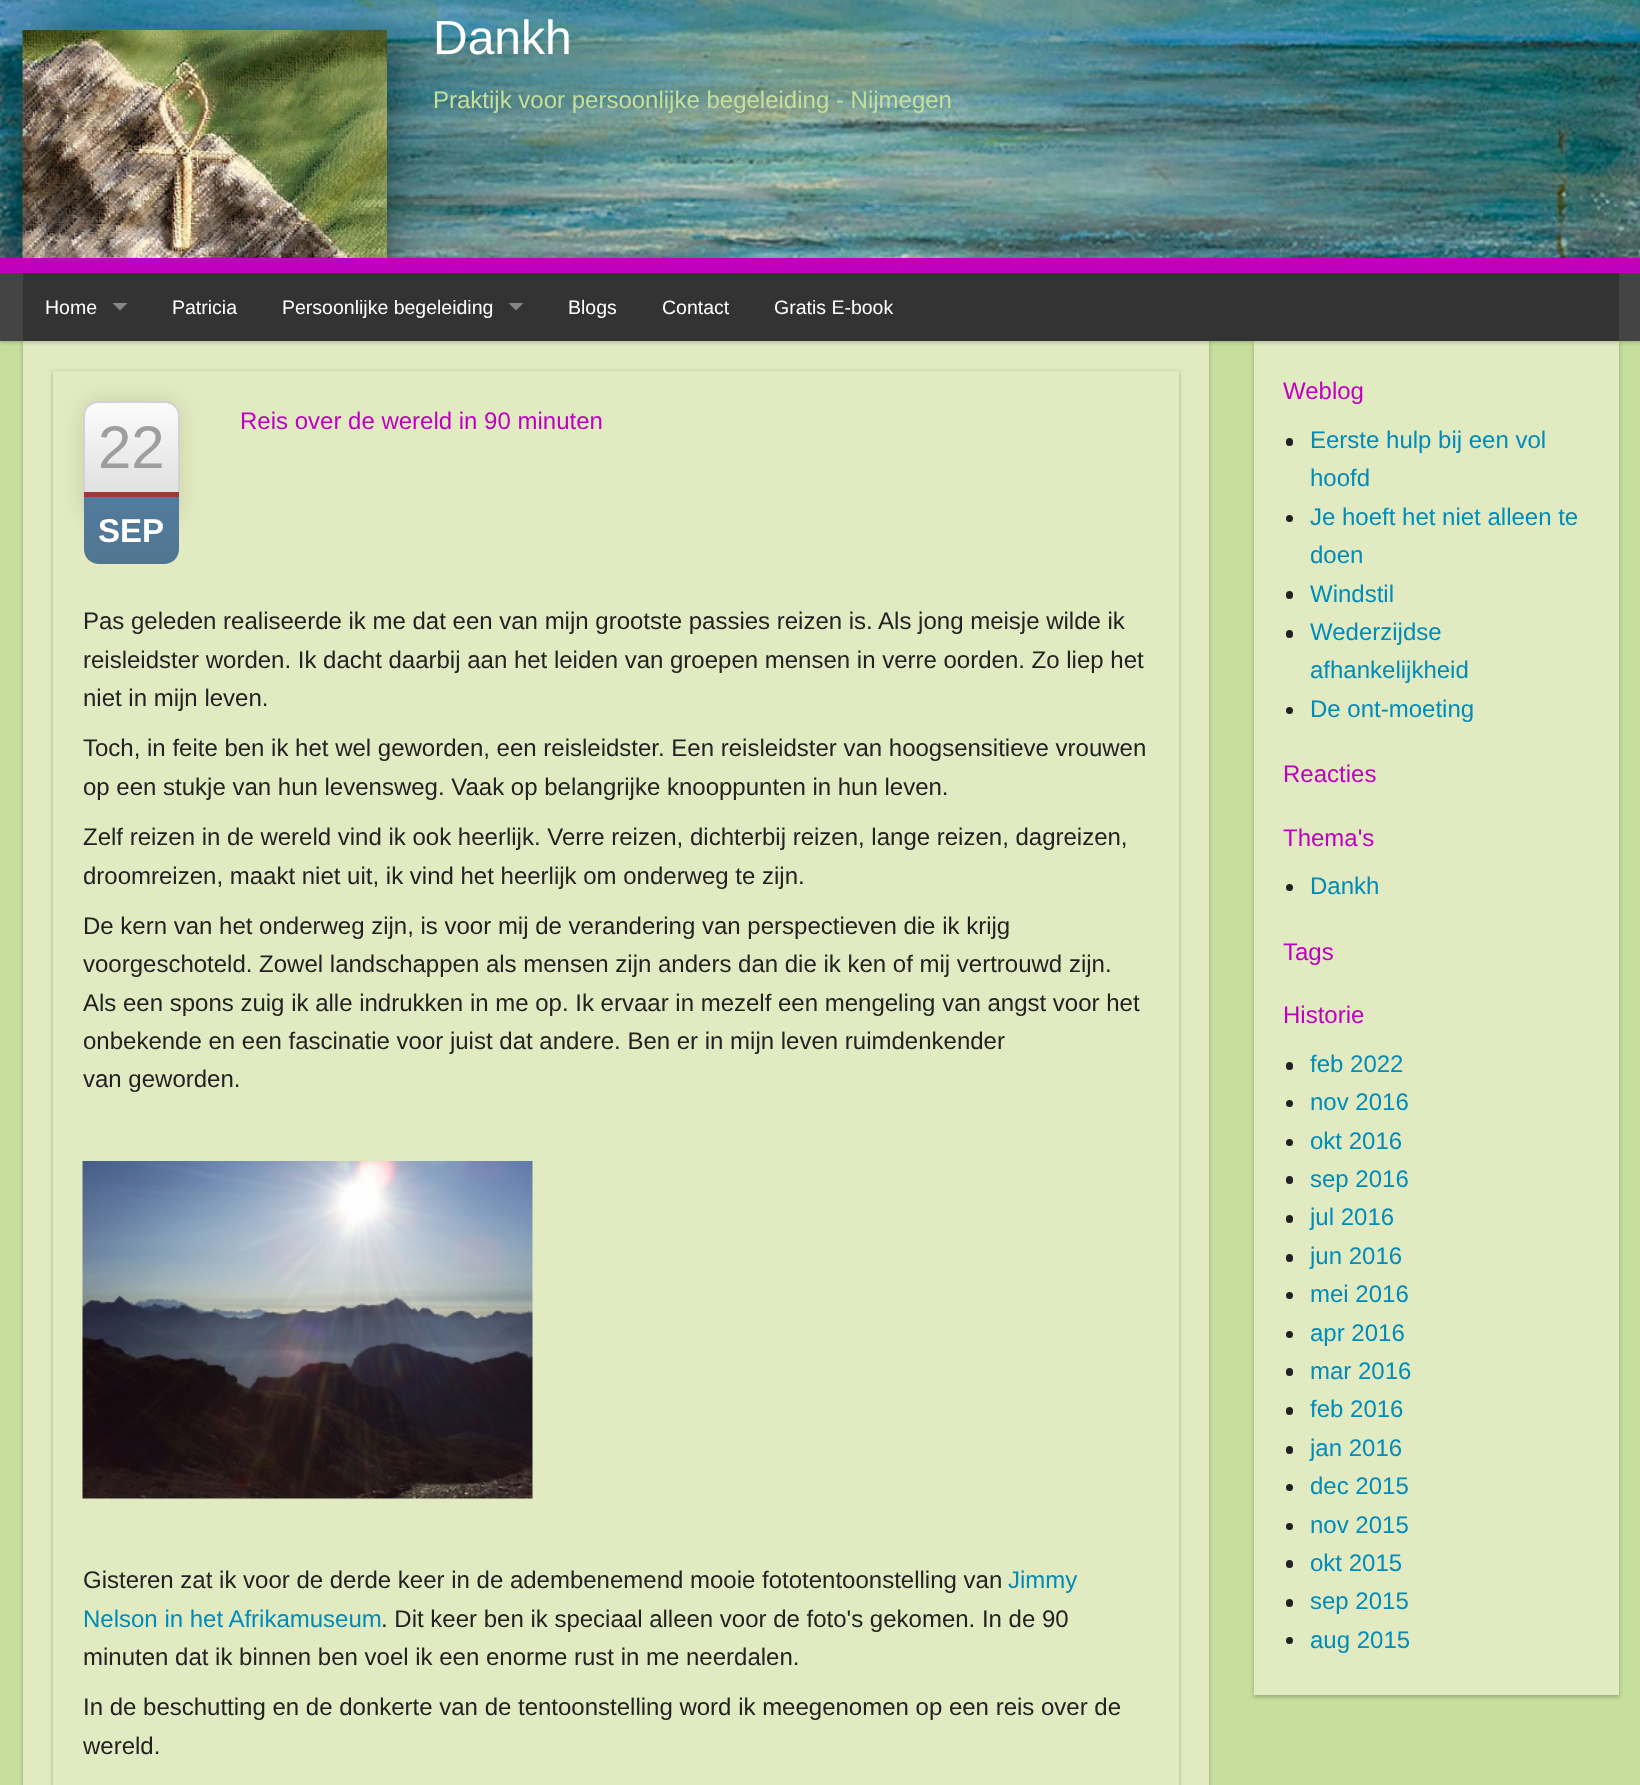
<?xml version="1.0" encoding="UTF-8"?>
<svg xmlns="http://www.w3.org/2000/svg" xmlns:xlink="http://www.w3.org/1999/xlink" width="1640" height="1785">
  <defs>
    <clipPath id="clip1"><path d="M 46 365 h 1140 v 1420 h -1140 z m 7 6 h 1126 v 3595 h -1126 z" clip-rule="evenodd" /></clipPath>
    <linearGradient id="g1" gradientUnits="userSpaceOnUse" x1="131" y1="402" x2="131" y2="519"><stop offset="0" stop-color="#fcfcfc" /><stop offset="1" stop-color="#dad8d8" /></linearGradient>
    <linearGradient id="g2" gradientUnits="userSpaceOnUse" x1="131" y1="497" x2="131" y2="564"><stop offset="0" stop-color="#527b9d" /><stop offset="1" stop-color="#517691" /></linearGradient>
  </defs>
  <rect width="100%" height="100%" fill="#c6df9c" />
  <image x="0" y="0" width="1640" height="258" xlink:href="image1.png" />
  <rect x="23" y="45" width="366" height="243" fill="#000000" fill-opacity="0.5" filter="blur(22.5px)" />
  <image x="22" y="30" width="365" height="228" xlink:href="image2.png" />
  <rect x="23" y="342" width="1186" height="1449" fill="#000000" fill-opacity="0.25" filter="blur(2px)" />
  <rect x="23" y="341" width="1186" height="1444" fill="#e1eac0" />
  <rect x="1254" y="342" width="365" height="1355" fill="#000000" fill-opacity="0.25" filter="blur(2px)" />
  <rect x="1254" y="341" width="365" height="1354" fill="#e1eac0" />
  <rect y="260" width="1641" height="82" fill="#000000" fill-opacity="0.25" filter="blur(2px)" />
  <rect y="273" width="1640" height="68" fill="#444444" />
  <rect y="258" width="1640" height="15" fill="#c000c0" />
  <rect x="23" y="273" width="1596" height="68" fill="#333333" />
  <path d="M 112.5 303 h 15 l -7.5 7.5 z" fill="#858585" />
  <path d="M 508.5 303 h 15 l -7.5 7.5 z" fill="#858585" />
  <g clip-path="url(#clip1)">
    <rect x="53" y="372" width="1126" height="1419" fill="#000000" fill-opacity="0.25" filter="blur(2px)" />
  </g>
  <rect x="83" y="401" width="97" height="120" rx="15" fill="#000000" fill-opacity="0.1" filter="blur(11px)" />
  <rect x="84" y="402" width="95" height="117" rx="14" fill="url(#g1)" />
  <rect x="84" y="402" width="95" height="118" rx="14" fill="none" stroke="#d2d2d2" stroke-width="2" />
  <path d="M 84 497 h 95 v 52 c 0 8.5 -6.5 15 -15 15 h -65 c -8.5 0 -15 -6.5 -15 -15 z" fill="url(#g2)" />
  <rect x="84" y="492" width="95" height="5" fill="#a13838" />
  <image x="82" y="1161" width="451" height="338" xlink:href="image3.png" />
  <rect x="1286" y="438" width="7" height="8" rx="3.5" fill="#222222" />
  <circle cx="1289.5" cy="518.5" r="3.5" fill="#222222" />
  <rect x="1286" y="591" width="7" height="8" rx="3.5" fill="#222222" />
  <rect x="1286" y="630" width="7" height="8" rx="3.5" fill="#222222" />
  <circle cx="1289.5" cy="710.5" r="3.5" fill="#222222" />
  <circle cx="1289.5" cy="887.5" r="3.5" fill="#222222" />
  <rect x="1286" y="1062" width="7" height="8" rx="3.5" fill="#222222" />
  <circle cx="1289.5" cy="1103.5" r="3.5" fill="#222222" />
  <circle cx="1289.5" cy="1142.5" r="3.5" fill="#222222" />
  <rect x="1286" y="1176" width="7" height="8" rx="3.5" fill="#222222" />
  <rect x="1286" y="1215" width="7" height="8" rx="3.5" fill="#222222" />
  <rect x="1286" y="1254" width="7" height="8" rx="3.5" fill="#222222" />
  <circle cx="1289.5" cy="1295.5" r="3.5" fill="#222222" />
  <circle cx="1289.5" cy="1334.5" r="3.5" fill="#222222" />
  <rect x="1286" y="1368" width="7" height="8" rx="3.5" fill="#222222" />
  <rect x="1286" y="1407" width="7" height="8" rx="3.5" fill="#222222" />
  <rect x="1286" y="1446" width="7" height="8" rx="3.5" fill="#222222" />
  <circle cx="1289.5" cy="1487.5" r="3.5" fill="#222222" />
  <circle cx="1289.5" cy="1526.5" r="3.5" fill="#222222" />
  <rect x="1286" y="1560" width="7" height="8" rx="3.5" fill="#222222" />
  <rect x="1286" y="1599" width="7" height="8" rx="3.5" fill="#222222" />
  <circle cx="1289.5" cy="1640.5" r="3.5" fill="#222222" />
  <text x="433" y="54" style="font-family: Liberation Sans; font-size: 48px; fill: #ffffff">Dankh</text>
  <text x="433" y="108" style="font-family: Liberation Sans; font-size: 24px; fill: #c6df9c">Praktijk voor persoonlijke begeleiding - Nijmegen</text>
  <text x="45" y="314" style="font-family: Liberation Sans; font-size: 19.5px; fill: #ffffff">Home</text>
  <text x="172" y="314" style="font-family: Liberation Sans; font-size: 19.5px; fill: #ffffff">Patricia</text>
  <text x="282" y="314" style="font-family: Liberation Sans; font-size: 19.5px; fill: #ffffff">Persoonlijke begeleiding</text>
  <text x="568" y="314" style="font-family: Liberation Sans; font-size: 19.5px; fill: #ffffff">Blogs</text>
  <text x="662" y="314" style="font-family: Liberation Sans; font-size: 19.5px; fill: #ffffff">Contact</text>
  <text x="774" y="314" style="font-family: Liberation Sans; font-size: 19.5px; fill: #ffffff">Gratis E-book</text>
  <text x="240" y="429" style="font-family: Liberation Sans; font-size: 24px; fill: #c000c0">Reis over de wereld in 90 minuten</text>
  <text x="98" y="468" style="font-family: Liberation Sans; font-size: 60px; fill: #9e9e9e">22</text>
  <text x="98" y="542" style="font-family: Liberation Sans; font-size: 33px; font-weight: bold; fill: #ffffff">SEP</text>
  <text x="83" y="629" style="font-family: Liberation Sans; font-size: 24px; fill: #222222">Pas geleden realiseerde ik me dat een van mijn grootste passies reizen is. Als jong meisje wilde ik</text>
  <text x="83" y="668" style="font-family: Liberation Sans; font-size: 24px; fill: #222222">reisleidster worden. Ik dacht daarbij aan het leiden van groepen mensen in verre oorden. Zo liep het</text>
  <text x="83" y="706" style="font-family: Liberation Sans; font-size: 24px; fill: #222222">niet in mijn leven.</text>
  <text x="83" y="756" style="font-family: Liberation Sans; font-size: 24px; fill: #222222">Toch, in feite ben ik het wel geworden, een reisleidster. Een reisleidster van hoogsensitieve vrouwen</text>
  <text x="83" y="795" style="font-family: Liberation Sans; font-size: 24px; fill: #222222">op een stukje van hun levensweg. Vaak op belangrijke knooppunten in hun leven.</text>
  <text x="83" y="845" style="font-family: Liberation Sans; font-size: 24px; fill: #222222">Zelf reizen in de wereld vind ik ook heerlijk. Verre reizen, dichterbij reizen, lange reizen, dagreizen,</text>
  <text x="83" y="884" style="font-family: Liberation Sans; font-size: 24px; fill: #222222">droomreizen, maakt niet uit, ik vind het heerlijk om onderweg te zijn.</text>
  <text x="83" y="934" style="font-family: Liberation Sans; font-size: 24px; fill: #222222">De kern van het onderweg zijn, is voor mij de verandering van perspectieven die ik krijg</text>
  <text x="83" y="972" style="font-family: Liberation Sans; font-size: 24px; fill: #222222">voorgeschoteld. Zowel landschappen als mensen zijn anders dan die ik ken of mij vertrouwd zijn.</text>
  <text x="83" y="1011" style="font-family: Liberation Sans; font-size: 24px; fill: #222222">Als een spons zuig ik alle indrukken in me op. Ik ervaar in mezelf een mengeling van angst voor het</text>
  <text x="83" y="1049" style="font-family: Liberation Sans; font-size: 24px; fill: #222222">onbekende en een fascinatie voor juist dat andere. Ben er in mijn leven ruimdenkender</text>
  <text x="83" y="1087" style="font-family: Liberation Sans; font-size: 24px; fill: #222222">van geworden.</text>
  <text x="83" y="1588" style="font-family: Liberation Sans; font-size: 24px; fill: #222222">Gisteren zat ik voor de derde keer in de adembenemend mooie fototentoonstelling van</text>
  <text x="1008" y="1588" style="font-family: Liberation Sans; font-size: 24px; fill: #008cba">Jimmy</text>
  <text x="83" y="1627" style="font-family: Liberation Sans; font-size: 24px; fill: #008cba">Nelson in het Afrikamuseum</text>
  <text x="381" y="1627" style="font-family: Liberation Sans; font-size: 24px; fill: #222222">. Dit keer ben ik speciaal alleen voor de foto's gekomen. In de 90</text>
  <text x="83" y="1665" style="font-family: Liberation Sans; font-size: 24px; fill: #222222">minuten dat ik binnen ben voel ik een enorme rust in me neerdalen.</text>
  <text x="83" y="1715" style="font-family: Liberation Sans; font-size: 24px; fill: #222222">In de beschutting en de donkerte van de tentoonstelling word ik meegenomen op een reis over de</text>
  <text x="83" y="1754" style="font-family: Liberation Sans; font-size: 24px; fill: #222222">wereld.</text>
  <text x="1283" y="399" style="font-family: Liberation Sans; font-size: 24px; fill: #c000c0">Weblog</text>
  <text x="1310" y="448" style="font-family: Liberation Sans; font-size: 24px; fill: #008cba">Eerste hulp bij een vol</text>
  <text x="1310" y="486" style="font-family: Liberation Sans; font-size: 24px; fill: #008cba">hoofd</text>
  <text x="1310" y="525" style="font-family: Liberation Sans; font-size: 24px; fill: #008cba">Je hoeft het niet alleen te</text>
  <text x="1310" y="563" style="font-family: Liberation Sans; font-size: 24px; fill: #008cba">doen</text>
  <text x="1310" y="602" style="font-family: Liberation Sans; font-size: 24px; fill: #008cba">Windstil</text>
  <text x="1310" y="640" style="font-family: Liberation Sans; font-size: 24px; fill: #008cba">Wederzijdse</text>
  <text x="1310" y="678" style="font-family: Liberation Sans; font-size: 24px; fill: #008cba">afhankelijkheid</text>
  <text x="1310" y="717" style="font-family: Liberation Sans; font-size: 24px; fill: #008cba">De ont-moeting</text>
  <text x="1283" y="782" style="font-family: Liberation Sans; font-size: 24px; fill: #c000c0">Reacties</text>
  <text x="1283" y="846" style="font-family: Liberation Sans; font-size: 24px; fill: #c000c0">Thema's</text>
  <text x="1310" y="894" style="font-family: Liberation Sans; font-size: 24px; fill: #008cba">Dankh</text>
  <text x="1283" y="960" style="font-family: Liberation Sans; font-size: 24px; fill: #c000c0">Tags</text>
  <text x="1283" y="1023" style="font-family: Liberation Sans; font-size: 24px; fill: #c000c0">Historie</text>
  <text x="1310" y="1072" style="font-family: Liberation Sans; font-size: 24px; fill: #008cba">feb 2022</text>
  <text x="1310" y="1110" style="font-family: Liberation Sans; font-size: 24px; fill: #008cba">nov 2016</text>
  <text x="1310" y="1149" style="font-family: Liberation Sans; font-size: 24px; fill: #008cba">okt 2016</text>
  <text x="1310" y="1187" style="font-family: Liberation Sans; font-size: 24px; fill: #008cba">sep 2016</text>
  <text x="1310" y="1225" style="font-family: Liberation Sans; font-size: 24px; fill: #008cba">jul 2016</text>
  <text x="1310" y="1264" style="font-family: Liberation Sans; font-size: 24px; fill: #008cba">jun 2016</text>
  <text x="1310" y="1302" style="font-family: Liberation Sans; font-size: 24px; fill: #008cba">mei 2016</text>
  <text x="1310" y="1341" style="font-family: Liberation Sans; font-size: 24px; fill: #008cba">apr 2016</text>
  <text x="1310" y="1379" style="font-family: Liberation Sans; font-size: 24px; fill: #008cba">mar 2016</text>
  <text x="1310" y="1417" style="font-family: Liberation Sans; font-size: 24px; fill: #008cba">feb 2016</text>
  <text x="1310" y="1456" style="font-family: Liberation Sans; font-size: 24px; fill: #008cba">jan 2016</text>
  <text x="1310" y="1494" style="font-family: Liberation Sans; font-size: 24px; fill: #008cba">dec 2015</text>
  <text x="1310" y="1533" style="font-family: Liberation Sans; font-size: 24px; fill: #008cba">nov 2015</text>
  <text x="1310" y="1571" style="font-family: Liberation Sans; font-size: 24px; fill: #008cba">okt 2015</text>
  <text x="1310" y="1609" style="font-family: Liberation Sans; font-size: 24px; fill: #008cba">sep 2015</text>
  <text x="1310" y="1648" style="font-family: Liberation Sans; font-size: 24px; fill: #008cba">aug 2015</text>
</svg>
